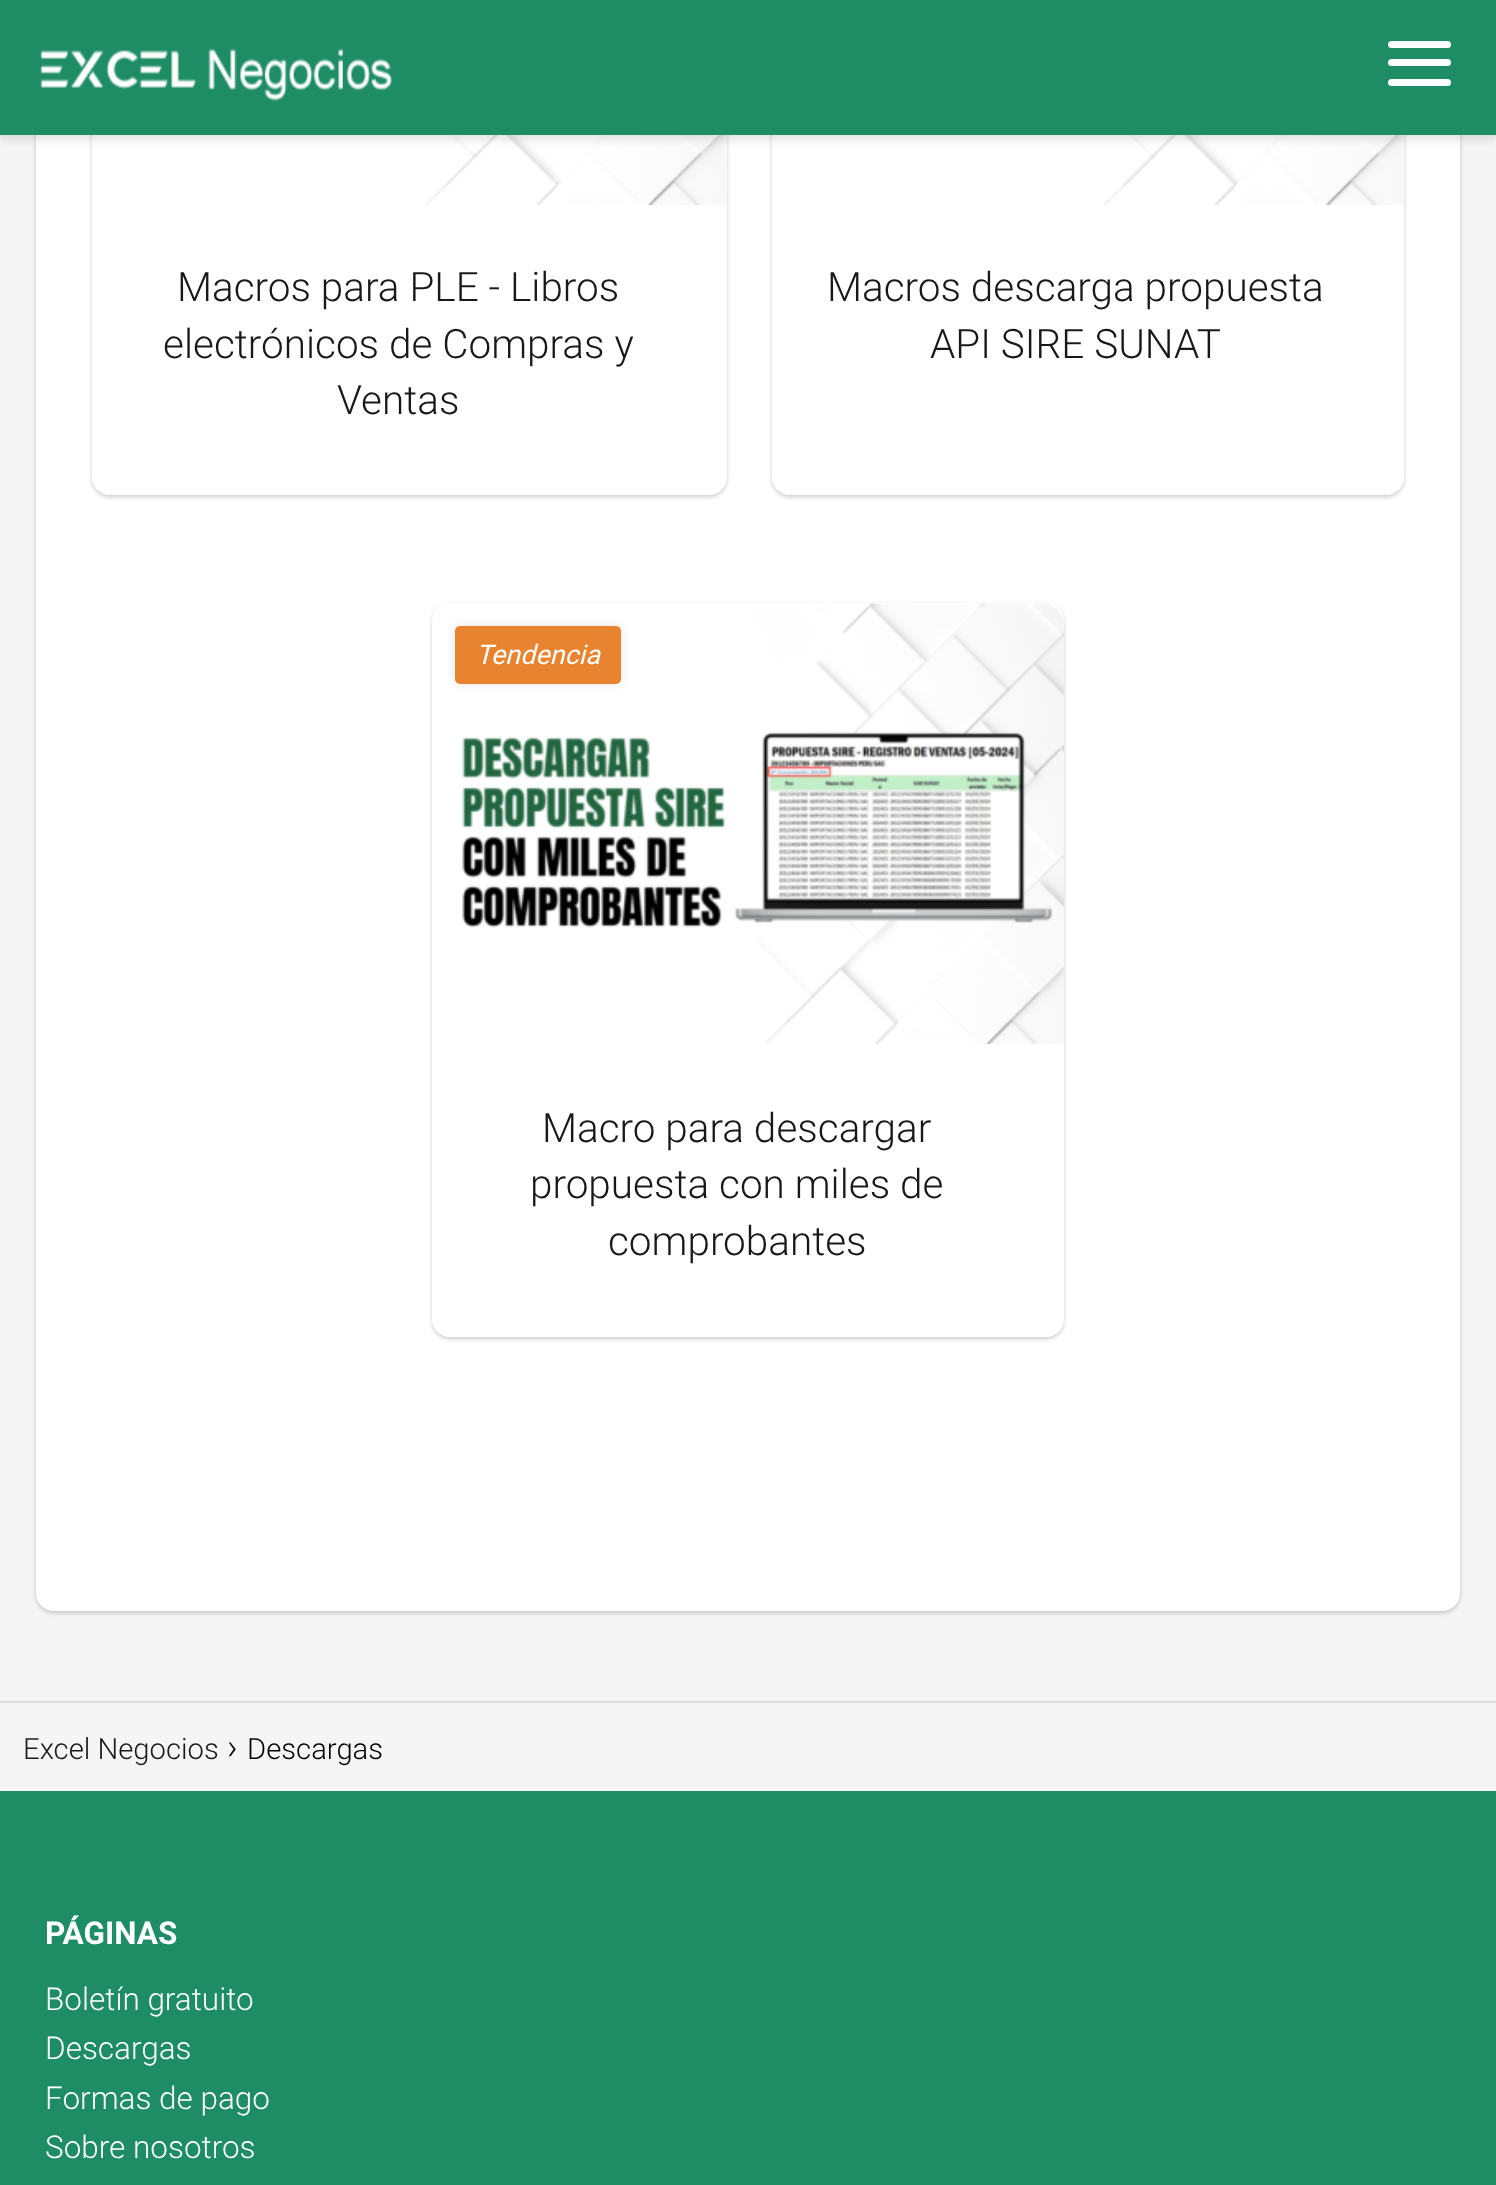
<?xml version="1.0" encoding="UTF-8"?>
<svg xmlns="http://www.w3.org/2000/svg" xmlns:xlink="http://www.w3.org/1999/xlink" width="1496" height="2185">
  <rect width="100%" height="100%" fill="#f5f5f5" />
  <rect x="36" y="-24" width="1424" height="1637" rx="18" fill="#000000" fill-opacity="0.2" filter="blur(2px)" />
  <rect x="36" y="-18" width="1424" height="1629" rx="18" fill="#ffffff" />
  <rect x="92" y="-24" width="635" height="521" rx="18" fill="#000000" fill-opacity="0.2" filter="blur(2px)" />
  <rect x="92" y="-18" width="635" height="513" rx="18" fill="#ffffff" />
  <image x="121" y="135" width="606" height="70" xlink:href="image2.png" />
  <rect x="772" y="-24" width="632" height="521" rx="18" fill="#000000" fill-opacity="0.2" filter="blur(2px)" />
  <rect x="772" y="-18" width="632" height="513" rx="18" fill="#ffffff" />
  <image x="802" y="135" width="602" height="70" xlink:href="image3.png" />
  <rect y="5" width="1496" height="135" fill="#000000" fill-opacity="0.1" filter="blur(4.5px)" />
  <rect width="1496" height="135" fill="#1e8c64" />
  <image x="40" y="48" width="352" height="53" xlink:href="image1.png" />
  <rect x="1388" y="41" width="63" height="7" rx="3.5" fill="#ffffff" />
  <rect x="1388" y="59" width="63" height="7" rx="3.5" fill="#ffffff" />
  <rect x="1388" y="79" width="63" height="7" rx="3.5" fill="#ffffff" />
  <rect x="432" y="605" width="632" height="734" rx="18" fill="#000000" fill-opacity="0.2" filter="blur(2px)" />
  <rect x="432" y="603" width="632" height="734" rx="18" fill="#ffffff" />
  <image x="462" y="603" width="602" height="442" xlink:href="image4.png" />
  <rect x="455" y="626" width="166" height="58" rx="5" fill="#000000" fill-opacity="0.1" filter="blur(5.5px)" />
  <rect x="455" y="626" width="166" height="58" rx="5" fill="#e88330" />
  <rect y="1701" width="1496" height="2" fill="#dddddd" />
  <rect y="1791" width="1496" height="394" fill="#1e8c64" />
  <text x="177" y="301" style="font-family: Roboto; font-size: 40.5px; font-weight: 300; fill: #181818">Macros para PLE - Libros</text>
  <text x="163" y="358" style="font-family: Roboto; font-size: 40.5px; font-weight: 300; fill: #181818">electrónicos de Compras y</text>
  <text x="337" y="414" style="font-family: Roboto; font-size: 40.5px; font-weight: 300; fill: #181818">Ventas</text>
  <text x="827" y="301" style="font-family: Roboto; font-size: 40.5px; font-weight: 300; fill: #181818">Macros descarga propuesta</text>
  <text x="930" y="358" style="font-family: Roboto; font-size: 40.5px; font-weight: 300; fill: #181818">API SIRE SUNAT</text>
  <text x="476" y="664" style="font-family: Roboto; font-size: 27px; font-style: italic; fill: #ffffff">Tendencia</text>
  <text x="542" y="1142" style="font-family: Roboto; font-size: 40.5px; font-weight: 300; fill: #181818">Macro para descargar</text>
  <text x="530" y="1198" style="font-family: Roboto; font-size: 40.5px; font-weight: 300; fill: #181818">propuesta con miles de</text>
  <text x="608" y="1255" style="font-family: Roboto; font-size: 40.5px; font-weight: 300; fill: #181818">comprobantes</text>
  <text x="23" y="1759" style="font-family: Roboto; font-size: 29.25px; font-weight: 300; fill: #181818">Excel Negocios</text>
  <text x="227" y="1759" style="font-family: Roboto; font-size: 36px; font-weight: 300; fill: #000000">›</text>
  <text x="247" y="1759" style="font-family: Roboto; font-size: 29.25px; font-weight: 300; fill: #000000">Descargas</text>
  <text x="45" y="1944" style="font-family: Roboto; font-size: 31.5px; font-weight: bold; fill: #ffffff">PÁGINAS</text>
  <text x="45" y="2010" style="font-family: Roboto; font-size: 31.5px; font-weight: 300; fill: #ffffff">Boletín gratuito</text>
  <text x="45" y="2059" style="font-family: Roboto; font-size: 31.5px; font-weight: 300; fill: #ffffff">Descargas</text>
  <text x="45" y="2109" style="font-family: Roboto; font-size: 31.5px; font-weight: 300; fill: #ffffff">Formas de pago</text>
  <text x="45" y="2158" style="font-family: Roboto; font-size: 31.5px; font-weight: 300; fill: #ffffff">Sobre nosotros</text>
</svg>
